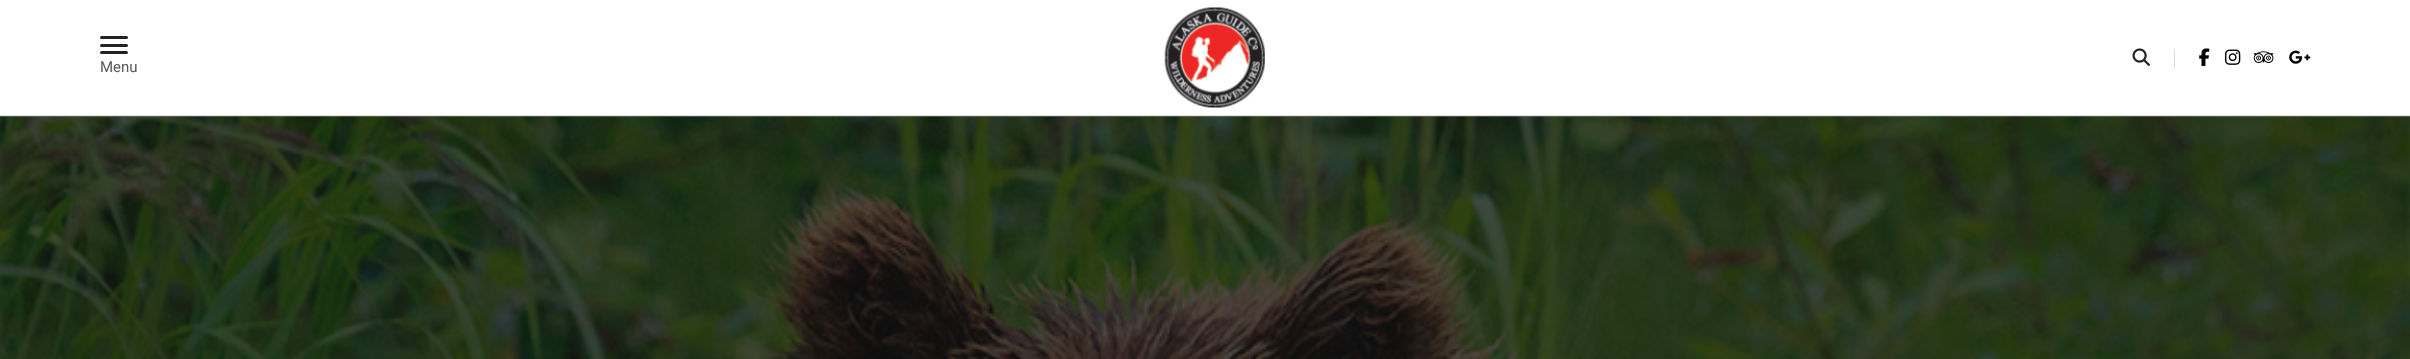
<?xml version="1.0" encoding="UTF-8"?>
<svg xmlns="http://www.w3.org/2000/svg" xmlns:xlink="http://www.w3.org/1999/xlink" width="2410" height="359">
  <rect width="100%" height="100%" fill="#ffffff" />
  <rect y="116" width="2410" height="1" fill="#8e8e8e" />
  <rect y="115" width="2410" height="1" fill="#e0e0e0" />
  <rect x="100" y="36" width="28" height="3" rx="1.5" fill="#232323" />
  <rect x="100" y="44" width="28" height="3" rx="1.5" fill="#232323" />
  <rect x="100" y="51" width="28" height="3" rx="1.5" fill="#232323" />
  <image x="1164" y="7" width="101" height="101" xlink:href="image1.png" />
  <image x="2132" y="48" width="18" height="18" xlink:href="image2.png" />
  <rect x="2174" y="49" width="1" height="19" fill="#d9d9d9" />
  <image x="2199" y="48" width="11" height="18" xlink:href="image3.png" />
  <image x="2225" y="49" width="16" height="16" xlink:href="image4.png" />
  <image x="2253" y="51" width="21" height="12" xlink:href="image5.png" />
  <image x="2289" y="50" width="22" height="14" xlink:href="image6.png" />
  <image x="0" y="116" width="2410" height="243" xlink:href="image7.png" />
  <rect x="2316" y="328" width="38" height="31" fill="#878787" fill-opacity="0.04" />
  <text x="100" y="72" style="font-family: Roboto; font-size: 15px; fill: #595959">Menu</text>
</svg>
